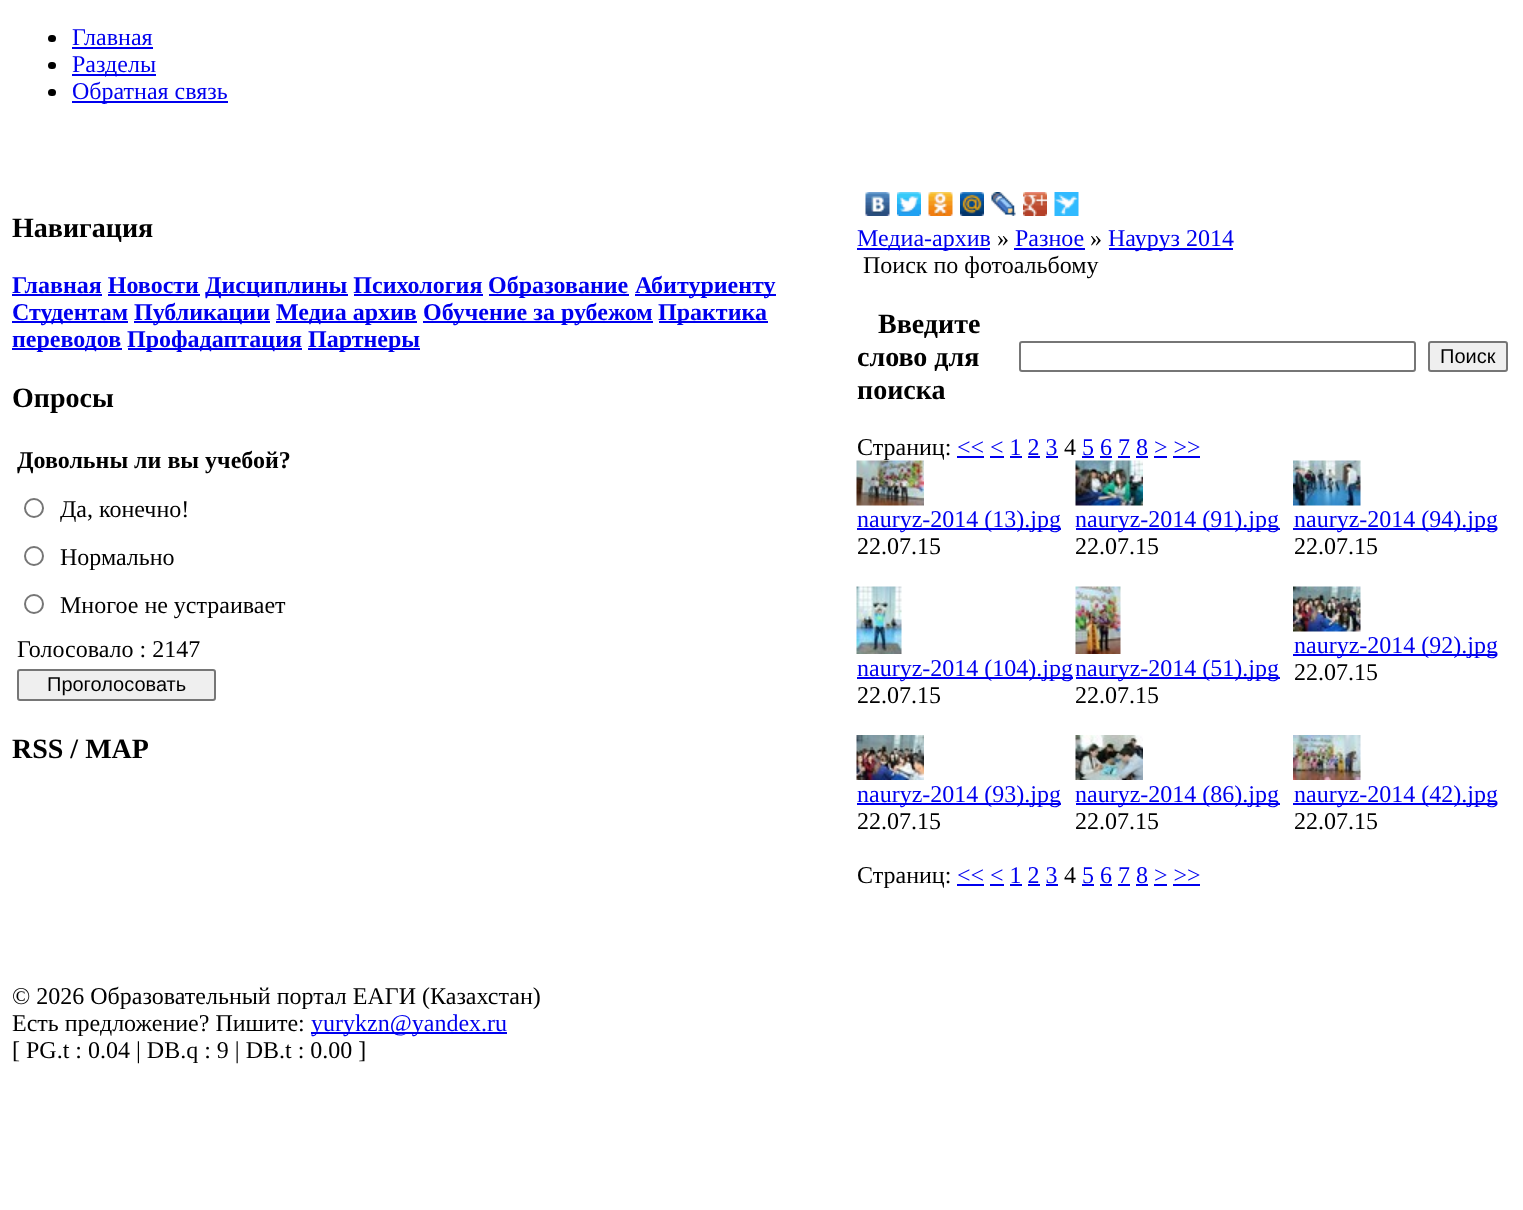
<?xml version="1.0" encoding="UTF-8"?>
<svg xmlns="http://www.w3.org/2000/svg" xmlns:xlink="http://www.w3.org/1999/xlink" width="1523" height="1210">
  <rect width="100%" height="100%" fill="#ffffff" />
  <rect x="48" y="35" width="8" height="7" rx="3.5" fill="#000000" />
  <rect x="72" y="47" width="81" height="2" fill="#0000ee" />
  <rect x="48" y="62" width="8" height="7" rx="3.5" fill="#000000" />
  <rect x="72" y="74" width="84" height="2" fill="#0000ee" />
  <rect x="48" y="89" width="8" height="7" rx="3.5" fill="#000000" />
  <rect x="72" y="101" width="156" height="2" fill="#0000ee" />
  <rect x="12" y="294" width="90" height="2" fill="#0000ee" />
  <rect x="108" y="294" width="92" height="2" fill="#0000ee" />
  <rect x="206" y="294" width="142" height="2" fill="#0000ee" />
  <rect x="354" y="294" width="129" height="2" fill="#0000ee" />
  <rect x="489" y="294" width="140" height="2" fill="#0000ee" />
  <rect x="635" y="294" width="141" height="2" fill="#0000ee" />
  <rect x="12" y="321" width="116" height="2" fill="#0000ee" />
  <rect x="134" y="321" width="136" height="2" fill="#0000ee" />
  <rect x="276" y="321" width="141" height="2" fill="#0000ee" />
  <rect x="423" y="321" width="230" height="2" fill="#0000ee" />
  <rect x="659" y="321" width="109" height="2" fill="#0000ee" />
  <rect x="12" y="348" width="110" height="2" fill="#0000ee" />
  <rect x="128" y="348" width="174" height="2" fill="#0000ee" />
  <rect x="308" y="348" width="112" height="2" fill="#0000ee" />
  <circle cx="34" cy="508" r="9" fill="none" stroke="#767676" stroke-width="2" />
  <circle cx="34" cy="556" r="9" fill="none" stroke="#767676" stroke-width="2" />
  <circle cx="34" cy="604" r="9" fill="none" stroke="#767676" stroke-width="2" />
  <rect x="18" y="670" width="197" height="30" rx="2" fill="#efefef" stroke="#767676" stroke-width="2" />
  <image x="865" y="192" width="25" height="24" xlink:href="image1.png" />
  <image x="897" y="192" width="24" height="24" xlink:href="image2.png" />
  <image x="928" y="192" width="25" height="24" xlink:href="image3.png" />
  <image x="960" y="192" width="24" height="24" xlink:href="image4.png" />
  <image x="991" y="192" width="25" height="24" xlink:href="image5.png" />
  <image x="1023" y="192" width="24" height="24" xlink:href="image6.png" />
  <image x="1054" y="192" width="25" height="24" xlink:href="image7.png" />
  <rect x="857" y="248" width="133" height="2" fill="#0000ee" />
  <rect x="1014" y="248" width="71" height="2" fill="#0000ee" />
  <rect x="1109" y="248" width="124" height="2" fill="#0000ee" />
  <rect x="1020" y="342" width="395" height="29" rx="2" fill="none" stroke="#767676" stroke-width="2" />
  <rect x="1429" y="342" width="78" height="29" rx="2" fill="#efefef" stroke="#767676" stroke-width="2" />
  <rect x="957" y="456" width="27" height="2" fill="#0000ee" />
  <rect x="1082" y="456" width="12" height="2" fill="#0000ee" />
  <rect x="990" y="456" width="14" height="2" fill="#0000ee" />
  <rect x="1010" y="456" width="12" height="2" fill="#0000ee" />
  <rect x="1028" y="456" width="12" height="2" fill="#0000ee" />
  <rect x="1046" y="456" width="12" height="2" fill="#0000ee" />
  <rect x="1100" y="456" width="12" height="2" fill="#0000ee" />
  <rect x="1118" y="456" width="12" height="2" fill="#0000ee" />
  <rect x="1136" y="456" width="12" height="2" fill="#0000ee" />
  <rect x="1154" y="456" width="13" height="2" fill="#0000ee" />
  <rect x="1173" y="456" width="27" height="2" fill="#0000ee" />
  <rect x="857" y="528" width="204" height="2" fill="#0000ee" />
  <image x="1075" y="460" width="68" height="46" xlink:href="image9.png" />
  <rect x="1076" y="528" width="204" height="2" fill="#0000ee" />
  <image x="1293" y="460" width="68" height="46" xlink:href="image10.png" />
  <rect x="1293" y="528" width="204" height="2" fill="#0000ee" />
  <image x="856" y="586" width="46" height="68" xlink:href="image11.png" />
  <rect x="857" y="677" width="216" height="2" fill="#0000ee" />
  <image x="1075" y="586" width="46" height="68" xlink:href="image12.png" />
  <rect x="1076" y="677" width="204" height="2" fill="#0000ee" />
  <image x="1293" y="586" width="68" height="46" xlink:href="image13.png" />
  <rect x="1293" y="654" width="204" height="2" fill="#0000ee" />
  <image x="856" y="735" width="68" height="45" xlink:href="image14.png" />
  <rect x="857" y="803" width="204" height="2" fill="#0000ee" />
  <image x="1075" y="735" width="68" height="45" xlink:href="image15.png" />
  <rect x="1076" y="803" width="204" height="2" fill="#0000ee" />
  <image x="1293" y="735" width="68" height="45" xlink:href="image16.png" />
  <rect x="1293" y="803" width="204" height="2" fill="#0000ee" />
  <rect x="957" y="884" width="27" height="2" fill="#0000ee" />
  <rect x="1082" y="884" width="12" height="2" fill="#0000ee" />
  <rect x="990" y="884" width="14" height="2" fill="#0000ee" />
  <rect x="1010" y="884" width="12" height="2" fill="#0000ee" />
  <rect x="1028" y="884" width="12" height="2" fill="#0000ee" />
  <rect x="1046" y="884" width="12" height="2" fill="#0000ee" />
  <rect x="1100" y="884" width="12" height="2" fill="#0000ee" />
  <rect x="1118" y="884" width="12" height="2" fill="#0000ee" />
  <rect x="1136" y="884" width="12" height="2" fill="#0000ee" />
  <rect x="1154" y="884" width="13" height="2" fill="#0000ee" />
  <rect x="1173" y="884" width="27" height="2" fill="#0000ee" />
  <rect x="311" y="1032" width="196" height="2" fill="#0000ee" />
  <text x="72" y="45" style="font-family: Liberation Serif; font-size: 24px; fill: #0000ee">Главная</text>
  <text x="72" y="72" style="font-family: Liberation Serif; font-size: 24px; fill: #0000ee">Разделы</text>
  <text x="72" y="99" style="font-family: Liberation Serif; font-size: 24px; fill: #0000ee">Обратная связь</text>
  <text x="12" y="237" style="font-family: Liberation Serif; font-size: 28px; font-weight: bold; fill: #000000">Навигация</text>
  <text x="12" y="293" style="font-family: Liberation Serif; font-size: 24px; font-weight: bold; fill: #0000ee">Главная Новости</text>
  <text x="205" y="293" style="font-family: Liberation Serif; font-size: 24px; font-weight: bold; fill: #0000ee">Дисциплины Психология</text>
  <text x="488" y="293" style="font-family: Liberation Serif; font-size: 24px; font-weight: bold; fill: #0000ee">Образование</text>
  <text x="635" y="293" style="font-family: Liberation Serif; font-size: 24px; font-weight: bold; fill: #0000ee">Абитуриенту</text>
  <text x="12" y="320" style="font-family: Liberation Serif; font-size: 24px; font-weight: bold; fill: #0000ee">Студентам</text>
  <text x="134" y="320" style="font-family: Liberation Serif; font-size: 24px; font-weight: bold; fill: #0000ee">Публикации</text>
  <text x="276" y="320" style="font-family: Liberation Serif; font-size: 24px; font-weight: bold; fill: #0000ee">Медиа архив</text>
  <text x="423" y="320" style="font-family: Liberation Serif; font-size: 24px; font-weight: bold; fill: #0000ee">Обучение за рубежом</text>
  <text x="658" y="320" style="font-family: Liberation Serif; font-size: 24px; font-weight: bold; fill: #0000ee">Практика</text>
  <text x="12" y="347" style="font-family: Liberation Serif; font-size: 24px; font-weight: bold; fill: #0000ee">переводов</text>
  <text x="127" y="347" style="font-family: Liberation Serif; font-size: 24px; font-weight: bold; fill: #0000ee">Профадаптация</text>
  <text x="308" y="347" style="font-family: Liberation Serif; font-size: 24px; font-weight: bold; fill: #0000ee">Партнеры</text>
  <text x="12" y="407" style="font-family: Liberation Serif; font-size: 28px; font-weight: bold; fill: #000000">Опросы</text>
  <text x="17" y="468" style="font-family: Liberation Serif; font-size: 24px; font-weight: bold; fill: #000000">Довольны ли вы учебой?</text>
  <text x="60" y="517" style="font-family: Liberation Serif; font-size: 24px; fill: #000000">Да, конечно!</text>
  <text x="60" y="565" style="font-family: Liberation Serif; font-size: 24px; fill: #000000">Нормально</text>
  <text x="60" y="613" style="font-family: Liberation Serif; font-size: 24px; fill: #000000">Многое не устраивает</text>
  <text x="17" y="657" style="font-family: Liberation Serif; font-size: 24px; fill: #000000">Голосовало : 2147</text>
  <text x="47" y="691" style="font-family: Liberation Sans; font-size: 20px; fill: #000000">Проголосовать</text>
  <text x="12" y="758" style="font-family: Liberation Serif; font-size: 28px; font-weight: bold; fill: #000000">RSS / MAP</text>
  <text x="857" y="246" style="font-family: Liberation Serif; font-size: 24px; fill: #0000ee">Медиа-архив</text>
  <text x="997" y="246" style="font-family: Liberation Serif; font-size: 24px; fill: #000000">»</text>
  <text x="1015" y="246" style="font-family: Liberation Serif; font-size: 24px; fill: #0000ee">Разное</text>
  <text x="1090" y="246" style="font-family: Liberation Serif; font-size: 24px; fill: #000000">»</text>
  <text x="1108" y="246" style="font-family: Liberation Serif; font-size: 24px; fill: #0000ee">Науруз 2014</text>
  <text x="863" y="273" style="font-family: Liberation Serif; font-size: 24px; fill: #000000">Поиск по фотоальбому</text>
  <text x="878" y="333" style="font-family: Liberation Serif; font-size: 28px; font-weight: bold; fill: #000000">Введите</text>
  <text x="857" y="366" style="font-family: Liberation Serif; font-size: 28px; font-weight: bold; fill: #000000">слово для</text>
  <text x="857" y="399" style="font-family: Liberation Serif; font-size: 28px; font-weight: bold; fill: #000000">поиска</text>
  <text x="1440" y="363" style="font-family: Liberation Sans; font-size: 20px; fill: #000000">Поиск</text>
  <text x="857" y="455" style="font-family: Liberation Serif; font-size: 24px; fill: #000000">Страниц:</text>
  <text x="957" y="455" style="font-family: Liberation Serif; font-size: 24px; fill: #0000ee">&lt;&lt; &lt; 1 2 3</text>
  <text x="1064" y="455" style="font-family: Liberation Serif; font-size: 24px; fill: #000000">4</text>
  <text x="1082" y="455" style="font-family: Liberation Serif; font-size: 24px; fill: #0000ee">5 6 7 8 &gt; &gt;&gt;</text>
  <image x="856" y="460" width="68" height="46" xlink:href="image8.png" />
  <text x="857" y="527" style="font-family: Liberation Serif; font-size: 24px; fill: #0000ee">nauryz-2014 (13).jpg</text>
  <text x="857" y="554" style="font-family: Liberation Serif; font-size: 24px; fill: #000000">22.07.15</text>
  <text x="1075" y="527" style="font-family: Liberation Serif; font-size: 24px; fill: #0000ee">nauryz-2014 (91).jpg</text>
  <text x="1075" y="554" style="font-family: Liberation Serif; font-size: 24px; fill: #000000">22.07.15</text>
  <text x="1294" y="527" style="font-family: Liberation Serif; font-size: 24px; fill: #0000ee">nauryz-2014 (94).jpg</text>
  <text x="1294" y="554" style="font-family: Liberation Serif; font-size: 24px; fill: #000000">22.07.15</text>
  <text x="857" y="676" style="font-family: Liberation Serif; font-size: 24px; fill: #0000ee">nauryz-2014 (104).jpg</text>
  <text x="857" y="703" style="font-family: Liberation Serif; font-size: 24px; fill: #000000">22.07.15</text>
  <text x="1075" y="676" style="font-family: Liberation Serif; font-size: 24px; fill: #0000ee">nauryz-2014 (51).jpg</text>
  <text x="1075" y="703" style="font-family: Liberation Serif; font-size: 24px; fill: #000000">22.07.15</text>
  <text x="1294" y="653" style="font-family: Liberation Serif; font-size: 24px; fill: #0000ee">nauryz-2014 (92).jpg</text>
  <text x="1294" y="680" style="font-family: Liberation Serif; font-size: 24px; fill: #000000">22.07.15</text>
  <text x="857" y="802" style="font-family: Liberation Serif; font-size: 24px; fill: #0000ee">nauryz-2014 (93).jpg</text>
  <text x="857" y="829" style="font-family: Liberation Serif; font-size: 24px; fill: #000000">22.07.15</text>
  <text x="1075" y="802" style="font-family: Liberation Serif; font-size: 24px; fill: #0000ee">nauryz-2014 (86).jpg</text>
  <text x="1075" y="829" style="font-family: Liberation Serif; font-size: 24px; fill: #000000">22.07.15</text>
  <text x="1294" y="802" style="font-family: Liberation Serif; font-size: 24px; fill: #0000ee">nauryz-2014 (42).jpg</text>
  <text x="1294" y="829" style="font-family: Liberation Serif; font-size: 24px; fill: #000000">22.07.15</text>
  <text x="857" y="883" style="font-family: Liberation Serif; font-size: 24px; fill: #000000">Страниц:</text>
  <text x="957" y="883" style="font-family: Liberation Serif; font-size: 24px; fill: #0000ee">&lt;&lt; &lt; 1 2 3</text>
  <text x="1064" y="883" style="font-family: Liberation Serif; font-size: 24px; fill: #000000">4</text>
  <text x="1082" y="883" style="font-family: Liberation Serif; font-size: 24px; fill: #0000ee">5 6 7 8 &gt; &gt;&gt;</text>
  <text x="12" y="1004" style="font-family: Liberation Serif; font-size: 24px; fill: #000000">© 2026 Образовательный портал ЕАГИ (Казахстан)</text>
  <text x="12" y="1031" style="font-family: Liberation Serif; font-size: 24px; fill: #000000">Есть предложение? Пишите:</text>
  <text x="311" y="1031" style="font-family: Liberation Serif; font-size: 24px; fill: #0000ee">yurykzn@yandex.ru</text>
  <text x="12" y="1058" style="font-family: Liberation Serif; font-size: 24px; fill: #000000">[ PG.t : 0.04 | DB.q : 9 | DB.t : 0.00 ]</text>
</svg>
